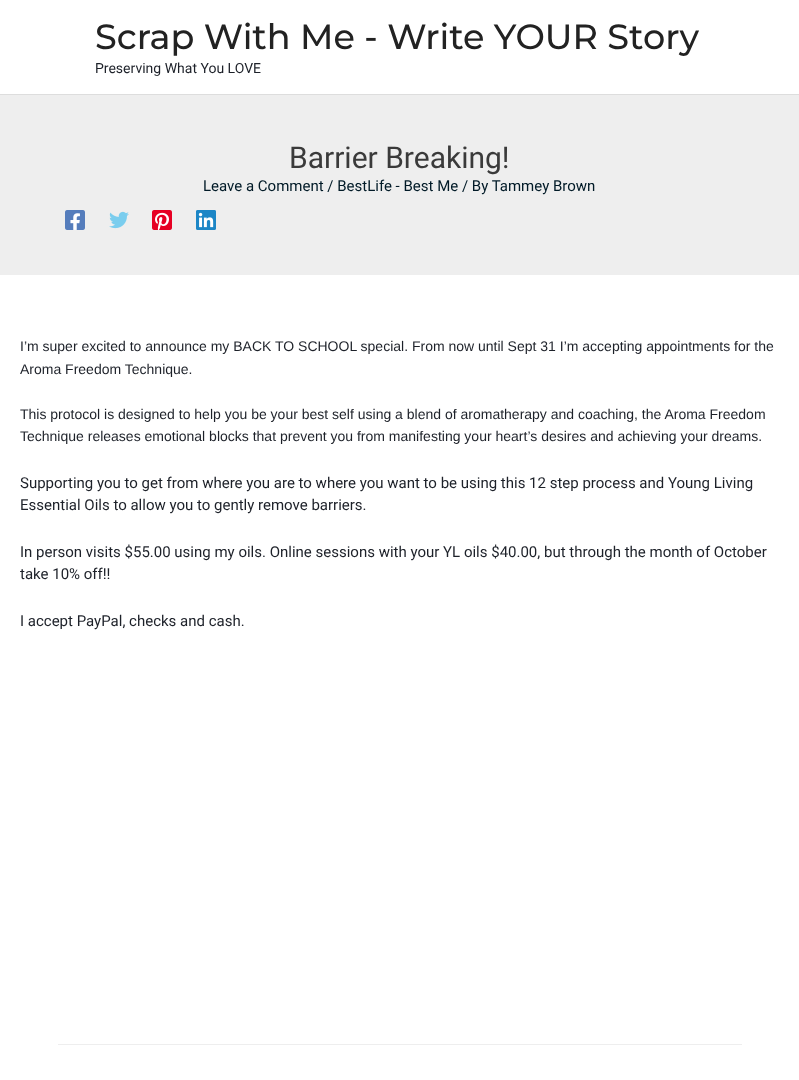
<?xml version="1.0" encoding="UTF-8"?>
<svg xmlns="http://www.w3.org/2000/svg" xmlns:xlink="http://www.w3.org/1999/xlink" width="799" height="1080">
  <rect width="100%" height="100%" fill="#ffffff" />
  <rect y="94" width="799" height="1" fill="#dddddd" />
  <rect y="95" width="799" height="180" fill="#eeeeee" />
  <image x="65" y="210" width="20" height="20" xlink:href="image1.png" />
  <image x="109" y="211" width="20" height="18" xlink:href="image2.png" />
  <image x="152" y="210" width="20" height="20" xlink:href="image3.png" />
  <image x="196" y="210" width="20" height="20" xlink:href="image4.png" />
  <rect x="58" y="1044" width="684" height="1" fill="#eeeeee" />
  <text x="95" y="49" style="font-family: Montserrat; font-size: 35px; font-weight: 100; fill: #222222">Scrap With Me - Write YOUR Story</text>
  <text x="95" y="73" style="font-family: Roboto; font-size: 14px; fill: #1d2129">Preserving What You LOVE</text>
  <text x="289" y="168" style="font-family: Roboto; font-size: 30px; fill: #3a3a3a">Barrier Breaking!</text>
  <text x="203" y="191" style="font-family: Roboto; font-size: 15px; fill: #011a27">Leave a Comment / BestLife - Best Me / By Tammey Brown</text>
  <text x="20" y="351" style="font-family: Liberation Sans; font-size: 14px; fill: #1d2129">I’m super excited to announce my BACK TO SCHOOL special. From now until Sept 31 I’m accepting appointments for the</text>
  <text x="20" y="374" style="font-family: Liberation Sans; font-size: 14px; fill: #1d2129">Aroma Freedom Technique.</text>
  <text x="20" y="419" style="font-family: Liberation Sans; font-size: 14px; fill: #1d2129">This protocol is designed to help you be your best self using a blend of aromatherapy and coaching, the Aroma Freedom</text>
  <text x="20" y="441" style="font-family: Liberation Sans; font-size: 14px; fill: #1d2129">Technique releases emotional blocks that prevent you from manifesting your heart’s desires and achieving your dreams.</text>
  <text x="20" y="488" style="font-family: Roboto; font-size: 15px; fill: #1d2129">Supporting you to get from where you are to where you want to be using this 12 step process and Young Living</text>
  <text x="20" y="510" style="font-family: Roboto; font-size: 15px; fill: #1d2129">Essential Oils to allow you to gently remove barriers.</text>
  <text x="20" y="557" style="font-family: Roboto; font-size: 15px; fill: #1d2129">In person visits $55.00 using my oils. Online sessions with your YL oils $40.00, but through the month of October</text>
  <text x="20" y="579" style="font-family: Roboto; font-size: 15px; fill: #1d2129">take 10% off!!</text>
  <text x="20" y="626" style="font-family: Roboto; font-size: 15px; fill: #1d2129">I accept PayPal, checks and cash.</text>
</svg>
